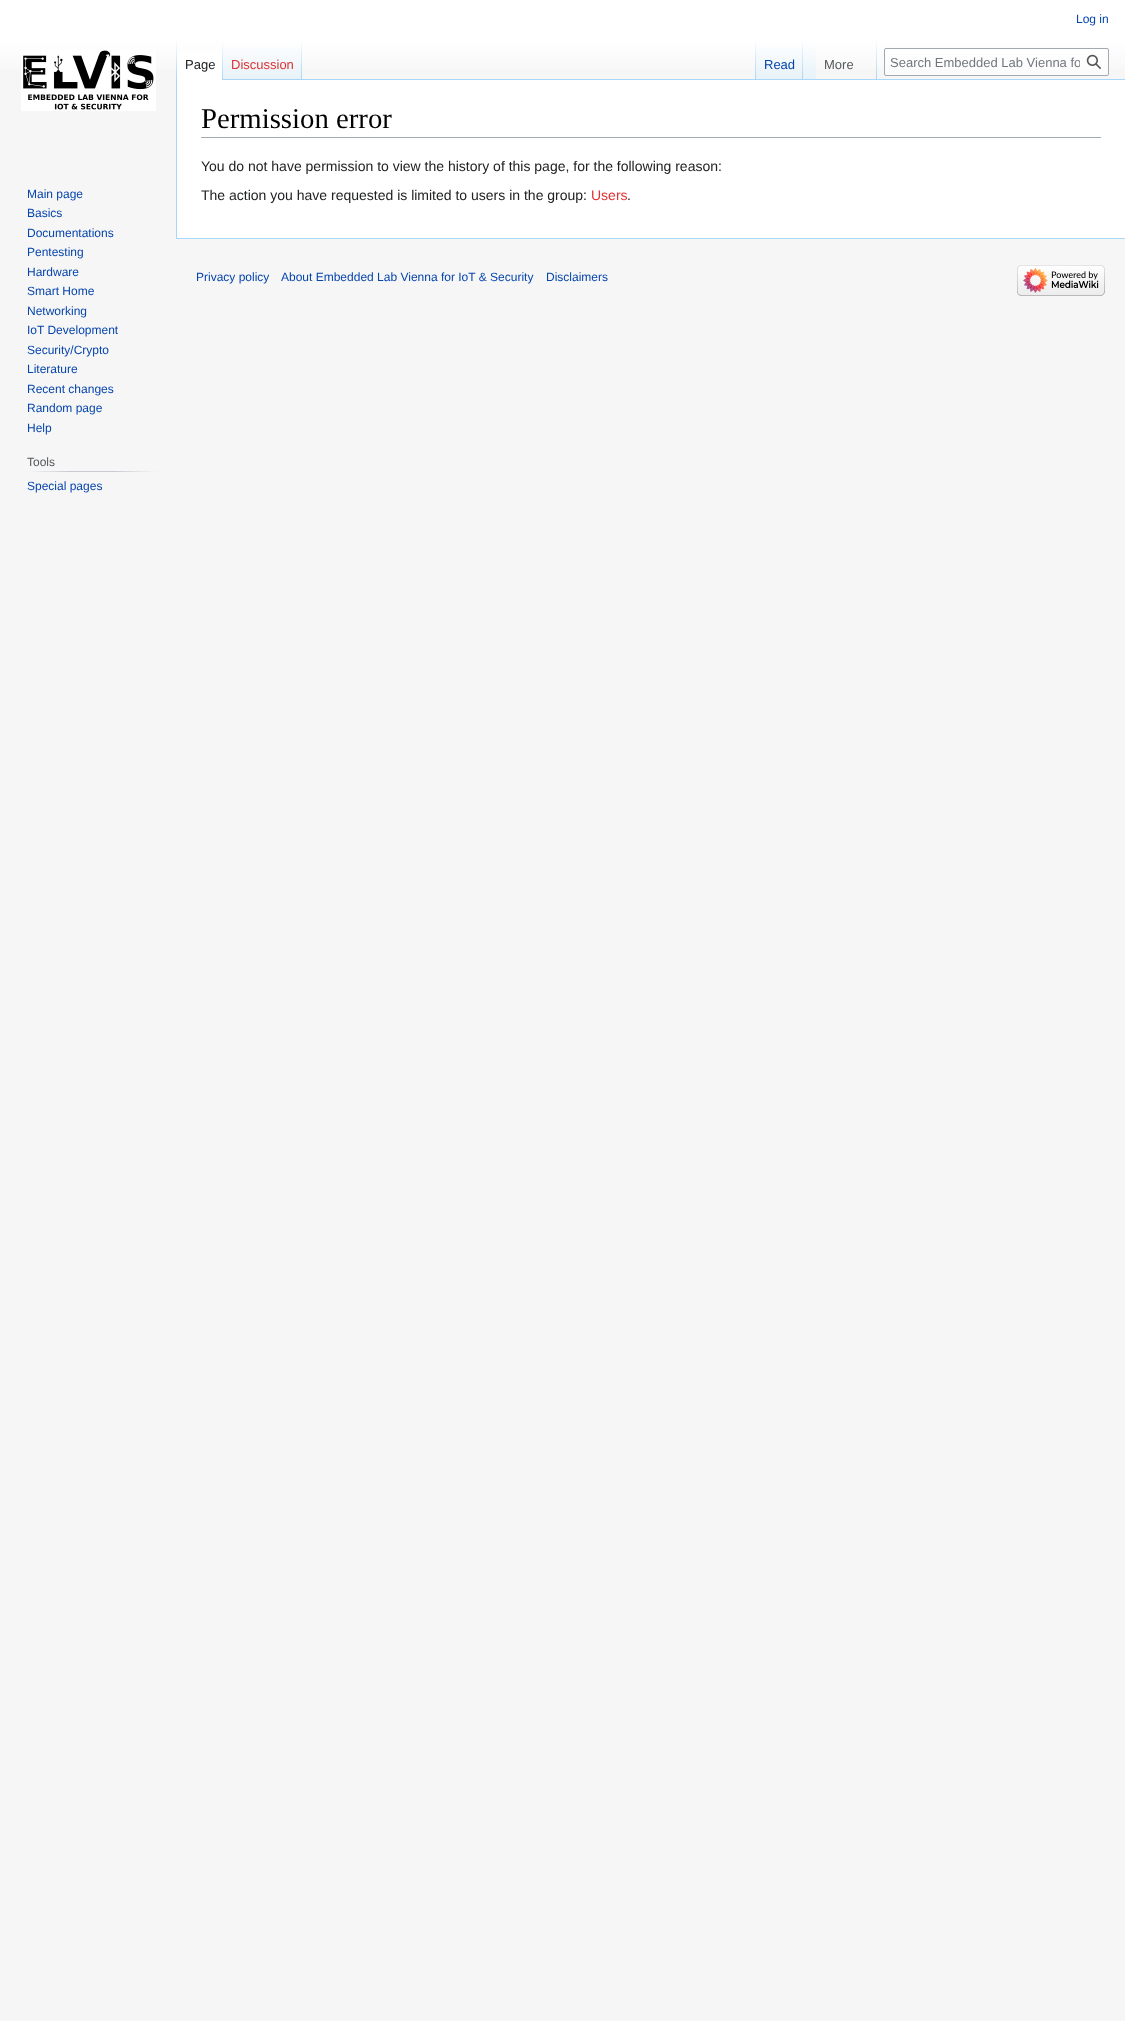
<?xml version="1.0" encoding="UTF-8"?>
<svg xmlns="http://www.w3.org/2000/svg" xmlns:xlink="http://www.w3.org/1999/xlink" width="1125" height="2021">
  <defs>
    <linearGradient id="g1" gradientUnits="userSpaceOnUse" x1="563" y1="0" x2="563" y2="80"><stop offset="0.5" stop-color="#ffffff" /><stop offset="1" stop-color="#f6f6f6" /></linearGradient>
    <linearGradient id="g2" gradientUnits="userSpaceOnUse" x1="177" y1="40" x2="177" y2="80"><stop offset="0" stop-color="#a7d7f9" stop-opacity="0" /><stop offset="1" stop-color="#a7d7f9" /></linearGradient>
    <linearGradient id="g3" gradientUnits="userSpaceOnUse" x1="223" y1="40" x2="223" y2="80"><stop offset="0" stop-color="#ffffff" /><stop offset="1" stop-color="#a7d7f9" /></linearGradient>
    <linearGradient id="g4" gradientUnits="userSpaceOnUse" x1="263" y1="80" x2="263" y2="40"><stop offset="0" stop-color="#77c1f6" /><stop offset="0.03" stop-color="#e8f2f8" /><stop offset="1" stop-color="#ffffff" /></linearGradient>
    <linearGradient id="g5" gradientUnits="userSpaceOnUse" x1="302" y1="40" x2="302" y2="80"><stop offset="0" stop-color="#a7d7f9" stop-opacity="0" /><stop offset="1" stop-color="#a7d7f9" /></linearGradient>
    <linearGradient id="g6" gradientUnits="userSpaceOnUse" x1="756" y1="40" x2="756" y2="80"><stop offset="0" stop-color="#a7d7f9" stop-opacity="0" /><stop offset="1" stop-color="#a7d7f9" /></linearGradient>
    <linearGradient id="g7" gradientUnits="userSpaceOnUse" x1="780" y1="80" x2="780" y2="40"><stop offset="0" stop-color="#77c1f6" /><stop offset="0.03" stop-color="#e8f2f8" /><stop offset="1" stop-color="#ffffff" /></linearGradient>
    <linearGradient id="g8" gradientUnits="userSpaceOnUse" x1="803" y1="40" x2="803" y2="80"><stop offset="0" stop-color="#a7d7f9" stop-opacity="0" /><stop offset="1" stop-color="#a7d7f9" /></linearGradient>
    <linearGradient id="g9" gradientUnits="userSpaceOnUse" x1="810" y1="80" x2="810" y2="40"><stop offset="0" stop-color="#77c1f6" /><stop offset="0.03" stop-color="#e8f2f8" /><stop offset="1" stop-color="#ffffff" /></linearGradient>
    <linearGradient id="g10" gradientUnits="userSpaceOnUse" x1="877" y1="40" x2="877" y2="80"><stop offset="0" stop-color="#a7d7f9" stop-opacity="0" /><stop offset="1" stop-color="#a7d7f9" /></linearGradient>
    <linearGradient id="g11" gradientUnits="userSpaceOnUse" x1="27" y1="472" x2="158" y2="472"><stop offset="0" stop-color="#f6f6f6" /><stop offset="0.33" stop-color="#c8ccd1" /><stop offset="0.66" stop-color="#c8ccd1" /><stop offset="1" stop-color="#f6f6f6" /></linearGradient>
    <clipPath id="clip1"><rect x="890" y="55" width="190" height="15" /></clipPath>
  </defs>
  <rect width="100%" height="100%" fill="#f6f6f6" />
  <rect width="1125" height="69" fill="url(#g1)" />
  <rect x="176" y="238" width="949" height="1" fill="#a7d7f9" />
  <rect x="176" y="79" width="1" height="160" fill="#a7d7f9" />
  <rect x="176" y="40" width="1" height="40" fill="url(#g2)" />
  <rect x="177" y="51" width="45" height="29" fill="#ffffff" />
  <rect x="222" y="40" width="1" height="40" fill="url(#g3)" />
  <rect x="223" y="46" width="79" height="34" fill="url(#g4)" />
  <rect x="301" y="40" width="1" height="40" fill="url(#g5)" />
  <rect x="302" y="79" width="823" height="1" fill="#a7d7f9" />
  <rect x="755" y="40" width="1" height="40" fill="url(#g6)" />
  <rect x="756" y="46" width="47" height="33" fill="url(#g7)" />
  <rect x="802" y="40" width="1" height="40" fill="url(#g8)" />
  <rect x="803" y="46" width="13" height="33" fill="url(#g9)" />
  <rect x="876" y="40" width="1" height="40" fill="url(#g10)" />
  <rect x="884.5" y="48.5" width="224" height="27" rx="1.5" fill="#ffffff" fill-opacity="0.5" stroke="#a2a9b1" />
  <image x="1086" y="54" width="15" height="15" xlink:href="image1.png" />
  <image x="21" y="50" width="135" height="61" xlink:href="image2.png" />
  <rect x="27" y="471" width="131" height="1" fill="url(#g11)" />
  <rect x="177" y="80" width="948" height="158" fill="#ffffff" />
  <rect x="201" y="137" width="900" height="1" fill="#a2a9b1" />
  <image x="1017" y="265" width="88" height="31" xlink:href="image3.png" />
  <text x="1076" y="23" style="font-family: Liberation Sans; font-size: 12px; fill: #0645ad">Log in</text>
  <text x="185" y="69" style="font-family: Liberation Sans; font-size: 13px; fill: #202122">Page</text>
  <text x="231" y="69" style="font-family: Liberation Sans; font-size: 13px; fill: #dd3333">Discussion</text>
  <text x="764" y="69" style="font-family: Liberation Sans; font-size: 13px; fill: #0645ad">Read</text>
  <text x="824" y="69" style="font-family: Liberation Sans; font-size: 13px; fill: #54595d">More</text>
  <g clip-path="url(#clip1)">
    <text x="890" y="67" style="font-family: Liberation Sans; font-size: 13px; fill: #72777d">Search Embedded Lab Vienna fo</text>
  </g>
  <text x="27" y="198" style="font-family: Liberation Sans; font-size: 12px; fill: #0645ad">Main page</text>
  <text x="27" y="217" style="font-family: Liberation Sans; font-size: 12px; fill: #0645ad">Basics</text>
  <text x="27" y="237" style="font-family: Liberation Sans; font-size: 12px; fill: #0645ad">Documentations</text>
  <text x="27" y="256" style="font-family: Liberation Sans; font-size: 12px; fill: #0645ad">Pentesting</text>
  <text x="27" y="276" style="font-family: Liberation Sans; font-size: 12px; fill: #0645ad">Hardware</text>
  <text x="27" y="295" style="font-family: Liberation Sans; font-size: 12px; fill: #0645ad">Smart Home</text>
  <text x="27" y="315" style="font-family: Liberation Sans; font-size: 12px; fill: #0645ad">Networking</text>
  <text x="27" y="334" style="font-family: Liberation Sans; font-size: 12px; fill: #0645ad">IoT Development</text>
  <text x="27" y="354" style="font-family: Liberation Sans; font-size: 12px; fill: #0645ad">Security/Crypto</text>
  <text x="27" y="373" style="font-family: Liberation Sans; font-size: 12px; fill: #0645ad">Literature</text>
  <text x="27" y="393" style="font-family: Liberation Sans; font-size: 12px; fill: #0645ad">Recent changes</text>
  <text x="27" y="412" style="font-family: Liberation Sans; font-size: 12px; fill: #0645ad">Random page</text>
  <text x="27" y="432" style="font-family: Liberation Sans; font-size: 12px; fill: #0645ad">Help</text>
  <text x="27" y="466" style="font-family: Liberation Sans; font-size: 12px; fill: #54595d">Tools</text>
  <text x="27" y="490" style="font-family: Liberation Sans; font-size: 12px; fill: #0645ad">Special pages</text>
  <text x="201" y="128" style="font-family: Liberation Serif; font-size: 28.75px; fill: #000000">Permission error</text>
  <text x="201" y="171" style="font-family: Liberation Sans; font-size: 14px; fill: #202122">You do not have permission to view the history of this page, for the following reason:</text>
  <text x="201" y="200" style="font-family: Liberation Sans; font-size: 14px; fill: #202122">The action you have requested is limited to users in the group:</text>
  <text x="591" y="200" style="font-family: Liberation Sans; font-size: 14px; fill: #dd3333">Users</text>
  <text x="627" y="200" style="font-family: Liberation Sans; font-size: 14px; fill: #202122">.</text>
  <text x="196" y="281" style="font-family: Liberation Sans; font-size: 12px; fill: #0645ad">Privacy policy</text>
  <text x="281" y="281" style="font-family: Liberation Sans; font-size: 12px; fill: #0645ad">About Embedded Lab Vienna for IoT &amp; Security</text>
  <text x="546" y="281" style="font-family: Liberation Sans; font-size: 12px; fill: #0645ad">Disclaimers</text>
</svg>
